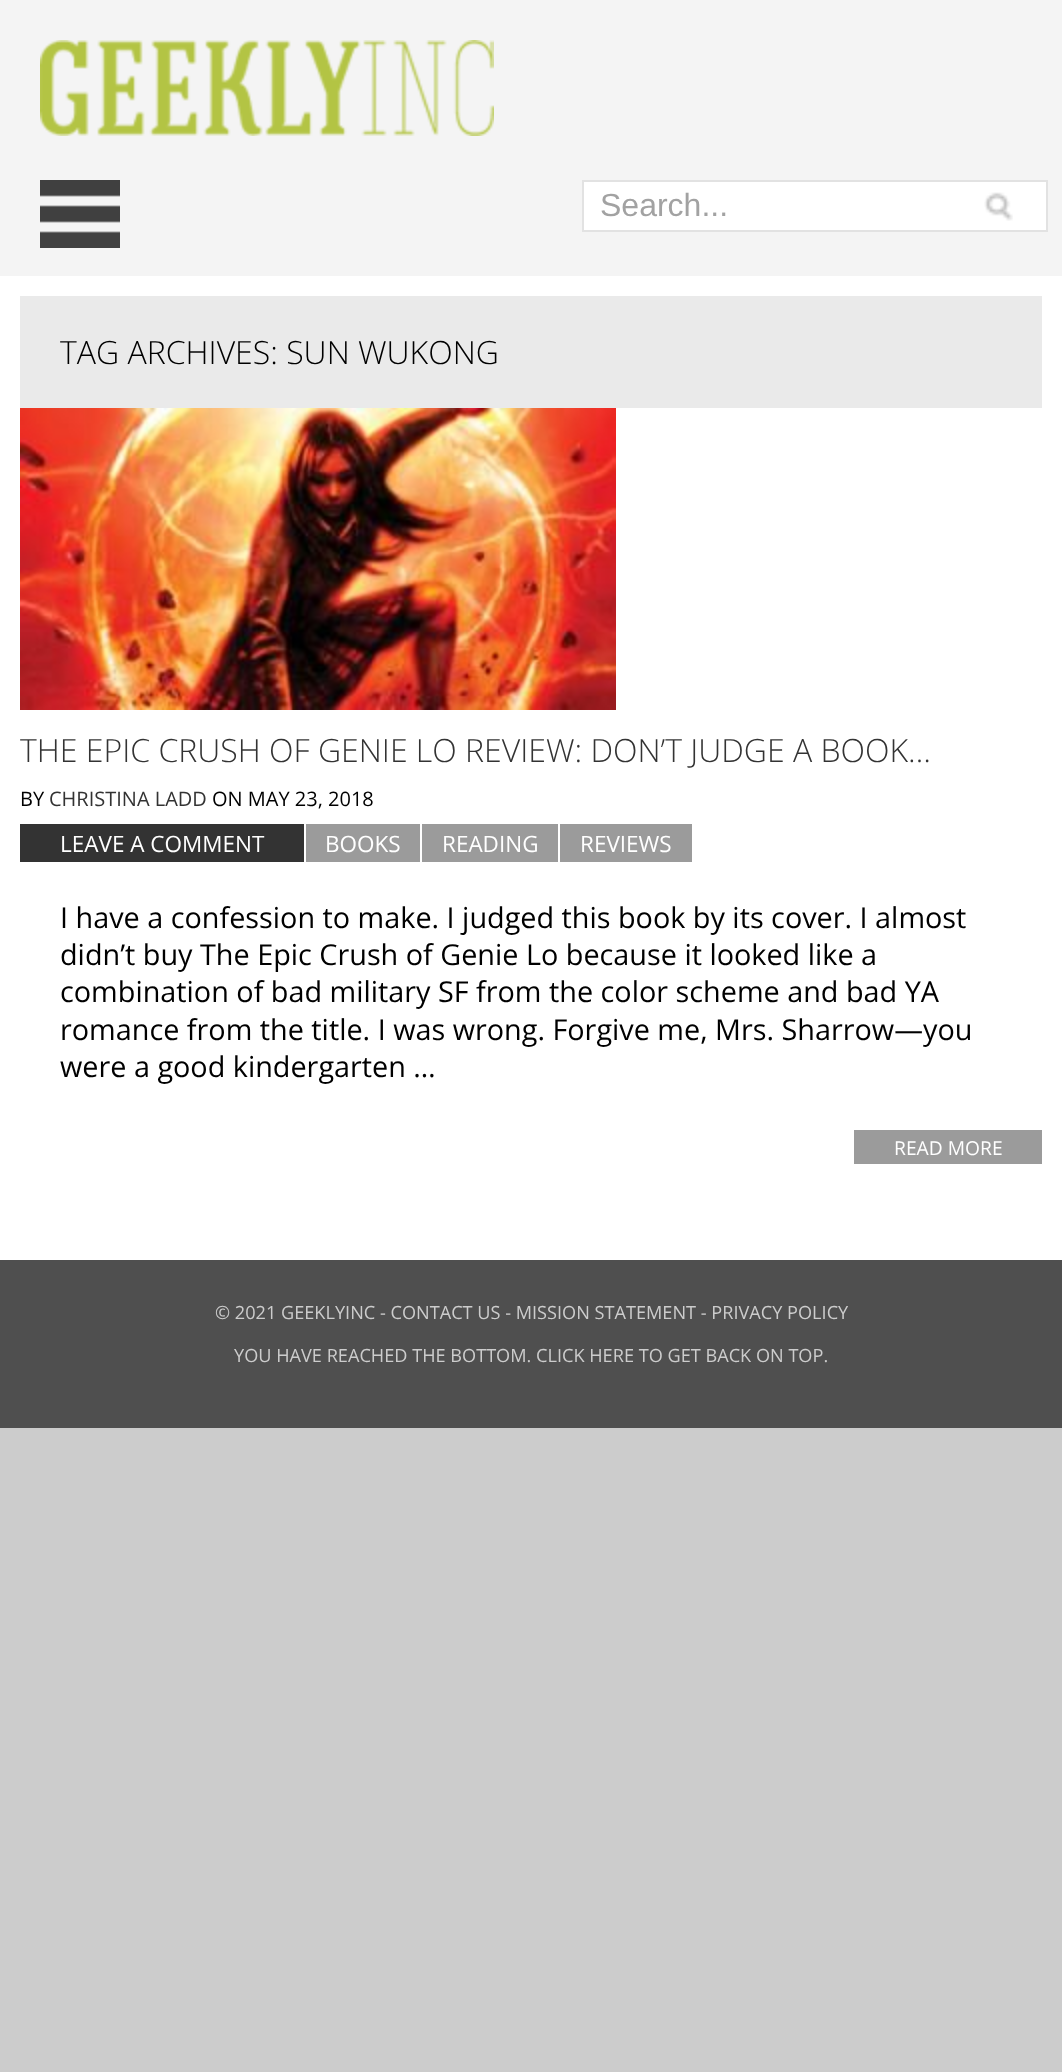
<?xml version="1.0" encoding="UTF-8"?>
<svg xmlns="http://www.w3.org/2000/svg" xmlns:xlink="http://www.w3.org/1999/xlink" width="1062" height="2072">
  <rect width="100%" height="100%" fill="#cccccc" />
  <rect y="276" width="1062" height="984" fill="#ffffff" />
  <rect width="1062" height="276" fill="#f4f4f4" />
  <image x="40" y="40" width="454" height="96" xlink:href="image1.png" />
  <image x="40" y="180" width="80" height="68" xlink:href="image2.png" />
  <rect x="583" y="181" width="464" height="50" fill="#ffffff" stroke="#e2e2e2" stroke-width="2" />
  <image x="984" y="192" width="29" height="29" xlink:href="image3.png" />
  <rect x="20" y="296" width="1022" height="112" fill="#eaeaea" />
  <image x="20" y="408" width="596" height="302" xlink:href="image4.png" />
  <rect x="20" y="824" width="284" height="38" fill="#333333" />
  <rect x="306" y="824" width="114" height="38" fill="#9b9b9b" />
  <rect x="422" y="824" width="136" height="38" fill="#9b9b9b" />
  <rect x="560" y="824" width="132" height="38" fill="#9b9b9b" />
  <rect x="854" y="1130" width="188" height="34" fill="#9b9b9b" />
  <rect y="1260" width="1062" height="168" fill="#4f4f4f" />
  <text x="600" y="216" style="font-family: Liberation Sans; font-size: 32px; fill: #a2a2a2">Search...</text>
  <text x="60" y="364" style="font-family: Open Sans; font-size: 32px; font-weight: 300; fill: #000000">TAG ARCHIVES: SUN WUKONG</text>
  <text x="20" y="762" style="font-family: Open Sans; font-size: 32px; font-weight: 300; fill: #333333">THE EPIC CRUSH OF GENIE LO REVIEW: DON’T JUDGE A BOOK…</text>
  <text x="20" y="806" style="font-family: Open Sans; font-size: 20px; fill: #000000">BY</text>
  <text x="49" y="806" style="font-family: Open Sans; font-size: 20px; fill: #333333">CHRISTINA LADD</text>
  <text x="212" y="806" style="font-family: Open Sans; font-size: 20px; fill: #000000">ON MAY 23, 2018</text>
  <text x="60" y="852" style="font-family: Open Sans; font-size: 22.5px; fill: #ffffff">LEAVE A COMMENT</text>
  <text x="325" y="852" style="font-family: Open Sans; font-size: 22.5px; fill: #ffffff">BOOKS</text>
  <text x="442" y="852" style="font-family: Open Sans; font-size: 22.5px; fill: #ffffff">READING</text>
  <text x="580" y="852" style="font-family: Open Sans; font-size: 22.5px; fill: #ffffff">REVIEWS</text>
  <text x="60" y="928" style="font-family: Open Sans; font-size: 28.8px; fill: #000000">I have a confession to make. I judged this book by its cover. I almost</text>
  <text x="60" y="965" style="font-family: Open Sans; font-size: 28.8px; fill: #000000">didn’t buy The Epic Crush of Genie Lo because it looked like a</text>
  <text x="60" y="1002" style="font-family: Open Sans; font-size: 28.8px; fill: #000000">combination of bad military SF from the color scheme and bad YA</text>
  <text x="60" y="1040" style="font-family: Open Sans; font-size: 28.8px; fill: #000000">romance from the title. I was wrong. Forgive me, Mrs. Sharrow—you</text>
  <text x="60" y="1077" style="font-family: Open Sans; font-size: 28.8px; fill: #000000">were a good kindergarten …</text>
  <text x="894" y="1155" style="font-family: Open Sans; font-size: 19.25px; fill: #ffffff">READ MORE</text>
  <text x="215" y="1319" style="font-family: Open Sans; font-size: 18.15px; fill: #cccccc">© 2021 GEEKLYINC - CONTACT US - MISSION STATEMENT - PRIVACY POLICY</text>
  <text x="234" y="1362" style="font-family: Open Sans; font-size: 18.15px; fill: #cccccc">YOU HAVE REACHED THE BOTTOM. CLICK HERE TO GET BACK ON TOP.</text>
</svg>
